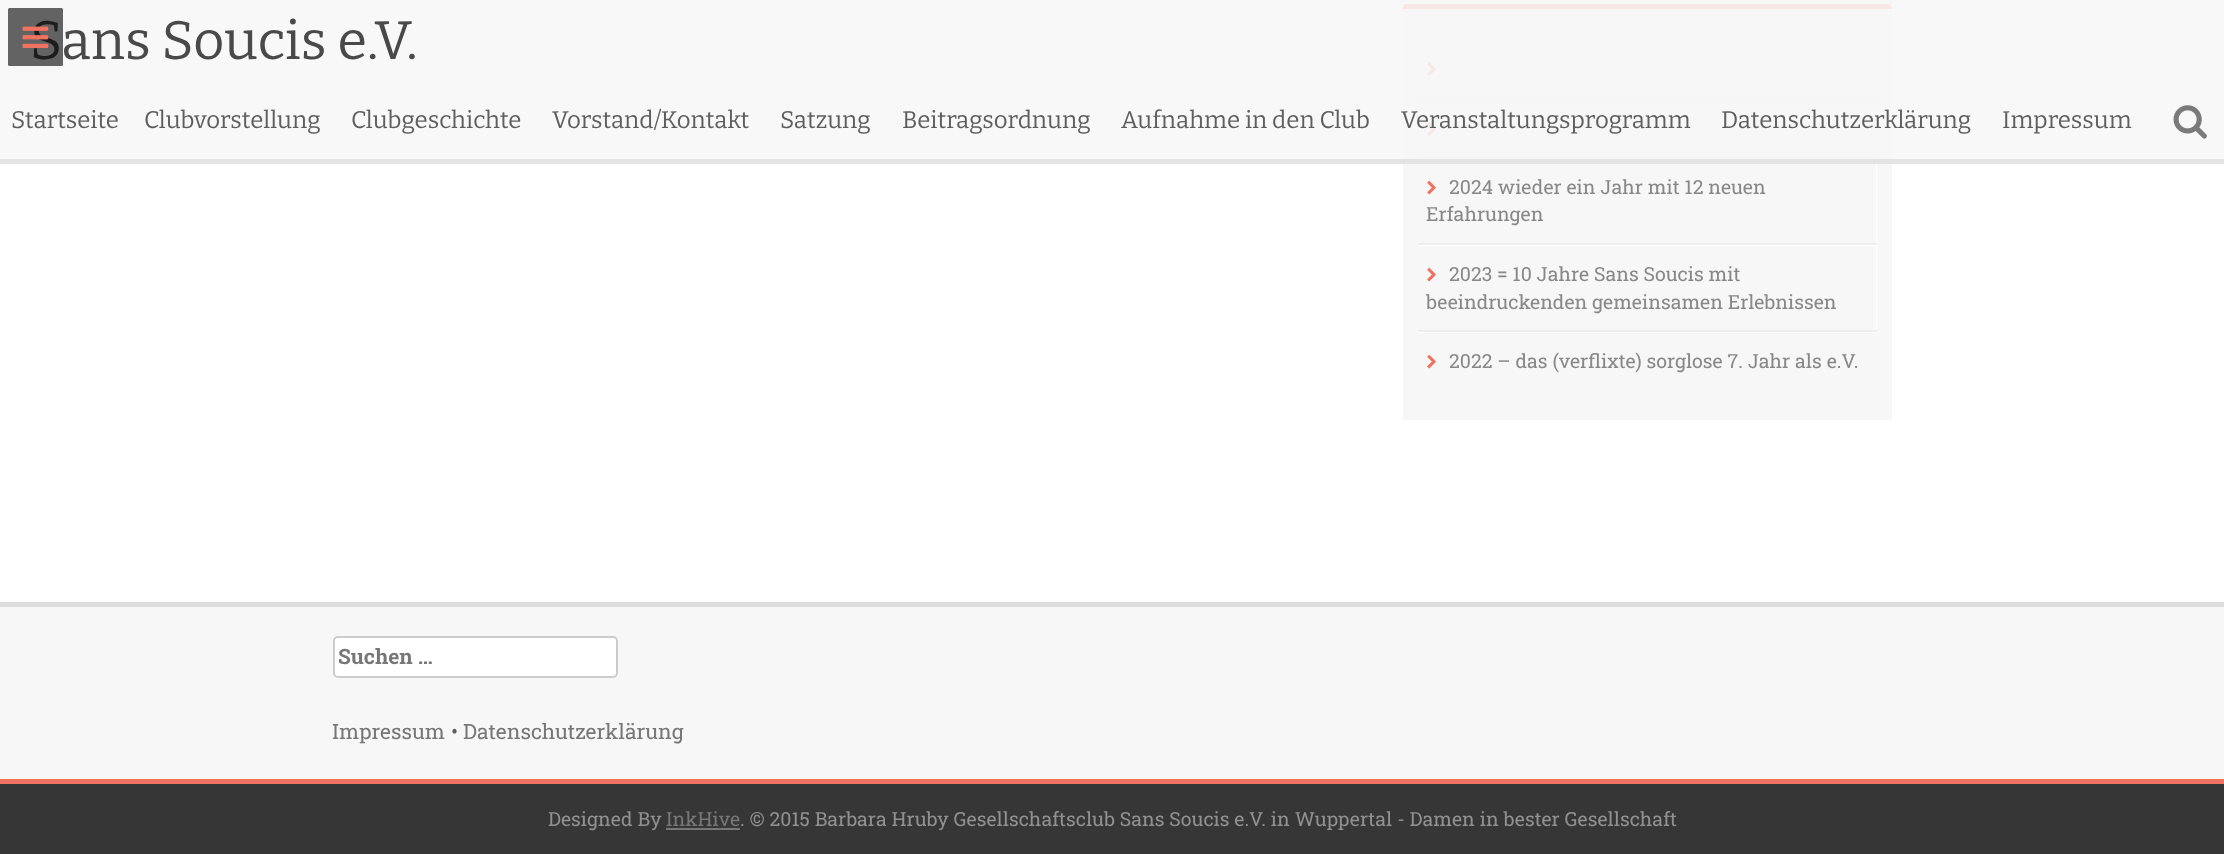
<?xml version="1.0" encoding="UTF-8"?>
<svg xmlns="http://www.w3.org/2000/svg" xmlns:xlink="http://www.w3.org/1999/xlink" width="2224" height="854">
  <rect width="100%" height="100%" fill="#ffffff" />
  <rect x="1403" width="489" height="420" fill="#f7f7f7" />
  <rect x="1404" width="486" height="4" fill="#ffffff" />
  <path d="M 1892 9 h -490 l 2 -5 h 486 z" fill="#f07261" />
  <path d="M 1402 9 v -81 l 2 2 v 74 z" fill="#f7f7f7" />
  <path d="M 1418 99 v 2 h 459 v -60 h -1 v 58 z" fill="#ffffff" />
  <rect x="1418" y="98" width="459" height="2" fill="#eeeeee" />
  <image x="1427" y="62" width="9" height="14" xlink:href="image3.png" />
  <path d="M 1418 158 v 1 h 459 v -58 h -1 v 57 z" fill="#ffffff" />
  <rect x="1418" y="156" width="459" height="2" fill="#eeeeee" />
  <image x="1427" y="122" width="9" height="14" xlink:href="image3.png" />
  <rect width="2224" height="159" fill="#f7f7f7" fill-opacity="0.88" />
  <path d="M 1418 244 v 2 h 459 v -87 h -1 v 85 z" fill="#ffffff" />
  <rect y="159" width="2224" height="5" fill="#e3e3e3" />
  <image x="2173" y="105" width="34" height="34" xlink:href="image2.png" />
  <rect x="1418" y="243" width="459" height="2" fill="#eeeeee" />
  <image x="1427" y="180" width="9" height="15" xlink:href="image4.png" />
  <path d="M 1418 332 v 1 h 459 v -87 h -1 v 86 z" fill="#ffffff" />
  <rect x="1418" y="330" width="459" height="2" fill="#eeeeee" />
  <image x="1427" y="267" width="9" height="15" xlink:href="image4.png" />
  <image x="1427" y="354" width="9" height="15" xlink:href="image4.png" />
  <rect y="607" width="2224" height="172" fill="#f7f7f7" />
  <rect y="602" width="2224" height="5" fill="#dddddd" />
  <rect x="334" y="637" width="283" height="40" rx="4" fill="#ffffff" stroke="#cccccc" stroke-width="2" />
  <rect y="784" width="2224" height="70" fill="#363636" />
  <rect y="779" width="2224" height="5" fill="#f07261" />
  <rect x="666" y="828" width="74" height="2" fill="#777777" />
  <text x="30" y="59" style="font-family: Bitter; font-size: 54px; fill: #494949">Sans Soucis e.V.</text>
  <rect x="8" y="8" width="55" height="58" rx="1.5" fill="#000000" fill-opacity="0.6" />
  <image x="22" y="26" width="27" height="22" xlink:href="image1.png" />
  <text x="11" y="128" style="font-family: Bitter; font-size: 24px; fill: #5e5e5e">Startseite</text>
  <text x="144" y="128" style="font-family: Bitter; font-size: 24px; fill: #5e5e5e">Clubvorstellung</text>
  <text x="351" y="128" style="font-family: Bitter; font-size: 24px; fill: #5e5e5e">Clubgeschichte</text>
  <text x="552" y="128" style="font-family: Bitter; font-size: 24px; fill: #5e5e5e">Vorstand/Kontakt</text>
  <text x="780" y="128" style="font-family: Bitter; font-size: 24px; fill: #5e5e5e">Satzung</text>
  <text x="902" y="128" style="font-family: Bitter; font-size: 24px; fill: #5e5e5e">Beitragsordnung</text>
  <text x="1121" y="128" style="font-family: Bitter; font-size: 24px; fill: #5e5e5e">Aufnahme in den Club</text>
  <text x="1401" y="128" style="font-family: Bitter; font-size: 24px; fill: #5e5e5e">Veranstaltungsprogramm</text>
  <text x="1721" y="128" style="font-family: Bitter; font-size: 24px; fill: #5e5e5e">Datenschutzerklärung</text>
  <text x="2002" y="128" style="font-family: Bitter; font-size: 24px; fill: #5e5e5e">Impressum</text>
  <text x="1449" y="194" style="font-family: Roboto Slab; font-size: 19.5px; fill: #888888">2024 wieder ein Jahr mit 12 neuen</text>
  <text x="1426" y="221" style="font-family: Roboto Slab; font-size: 19.5px; fill: #888888">Erfahrungen</text>
  <text x="1449" y="281" style="font-family: Roboto Slab; font-size: 19.5px; fill: #888888">2023 = 10 Jahre Sans Soucis mit</text>
  <text x="1426" y="309" style="font-family: Roboto Slab; font-size: 19.5px; fill: #888888">beeindruckenden gemeinsamen Erlebnissen</text>
  <text x="1449" y="368" style="font-family: Roboto Slab; font-size: 19.5px; fill: #888888">2022 – das (verflixte) sorglose 7. Jahr als e.V.</text>
  <text x="338" y="664" style="font-family: Roboto Slab; font-size: 21px; font-weight: bold; fill: #777777">Suchen …</text>
  <text x="332" y="739" style="font-family: Roboto Slab; font-size: 21px; fill: #777777">Impressum</text>
  <text x="451" y="739" style="font-family: Roboto Slab; font-size: 21px; fill: #5e5e5e">•</text>
  <text x="463" y="739" style="font-family: Roboto Slab; font-size: 21px; fill: #777777">Datenschutzerklärung</text>
  <text x="548" y="826" style="font-family: Roboto Slab; font-size: 19.5px; fill: #919191">Designed By</text>
  <text x="666" y="826" style="font-family: Roboto Slab; font-size: 19.5px; fill: #777777">InkHive</text>
  <text x="740" y="826" style="font-family: Roboto Slab; font-size: 19.5px; fill: #919191">. © 2015 Barbara Hruby Gesellschaftsclub Sans Soucis e.V. in Wuppertal - Damen in bester Gesellschaft</text>
</svg>
